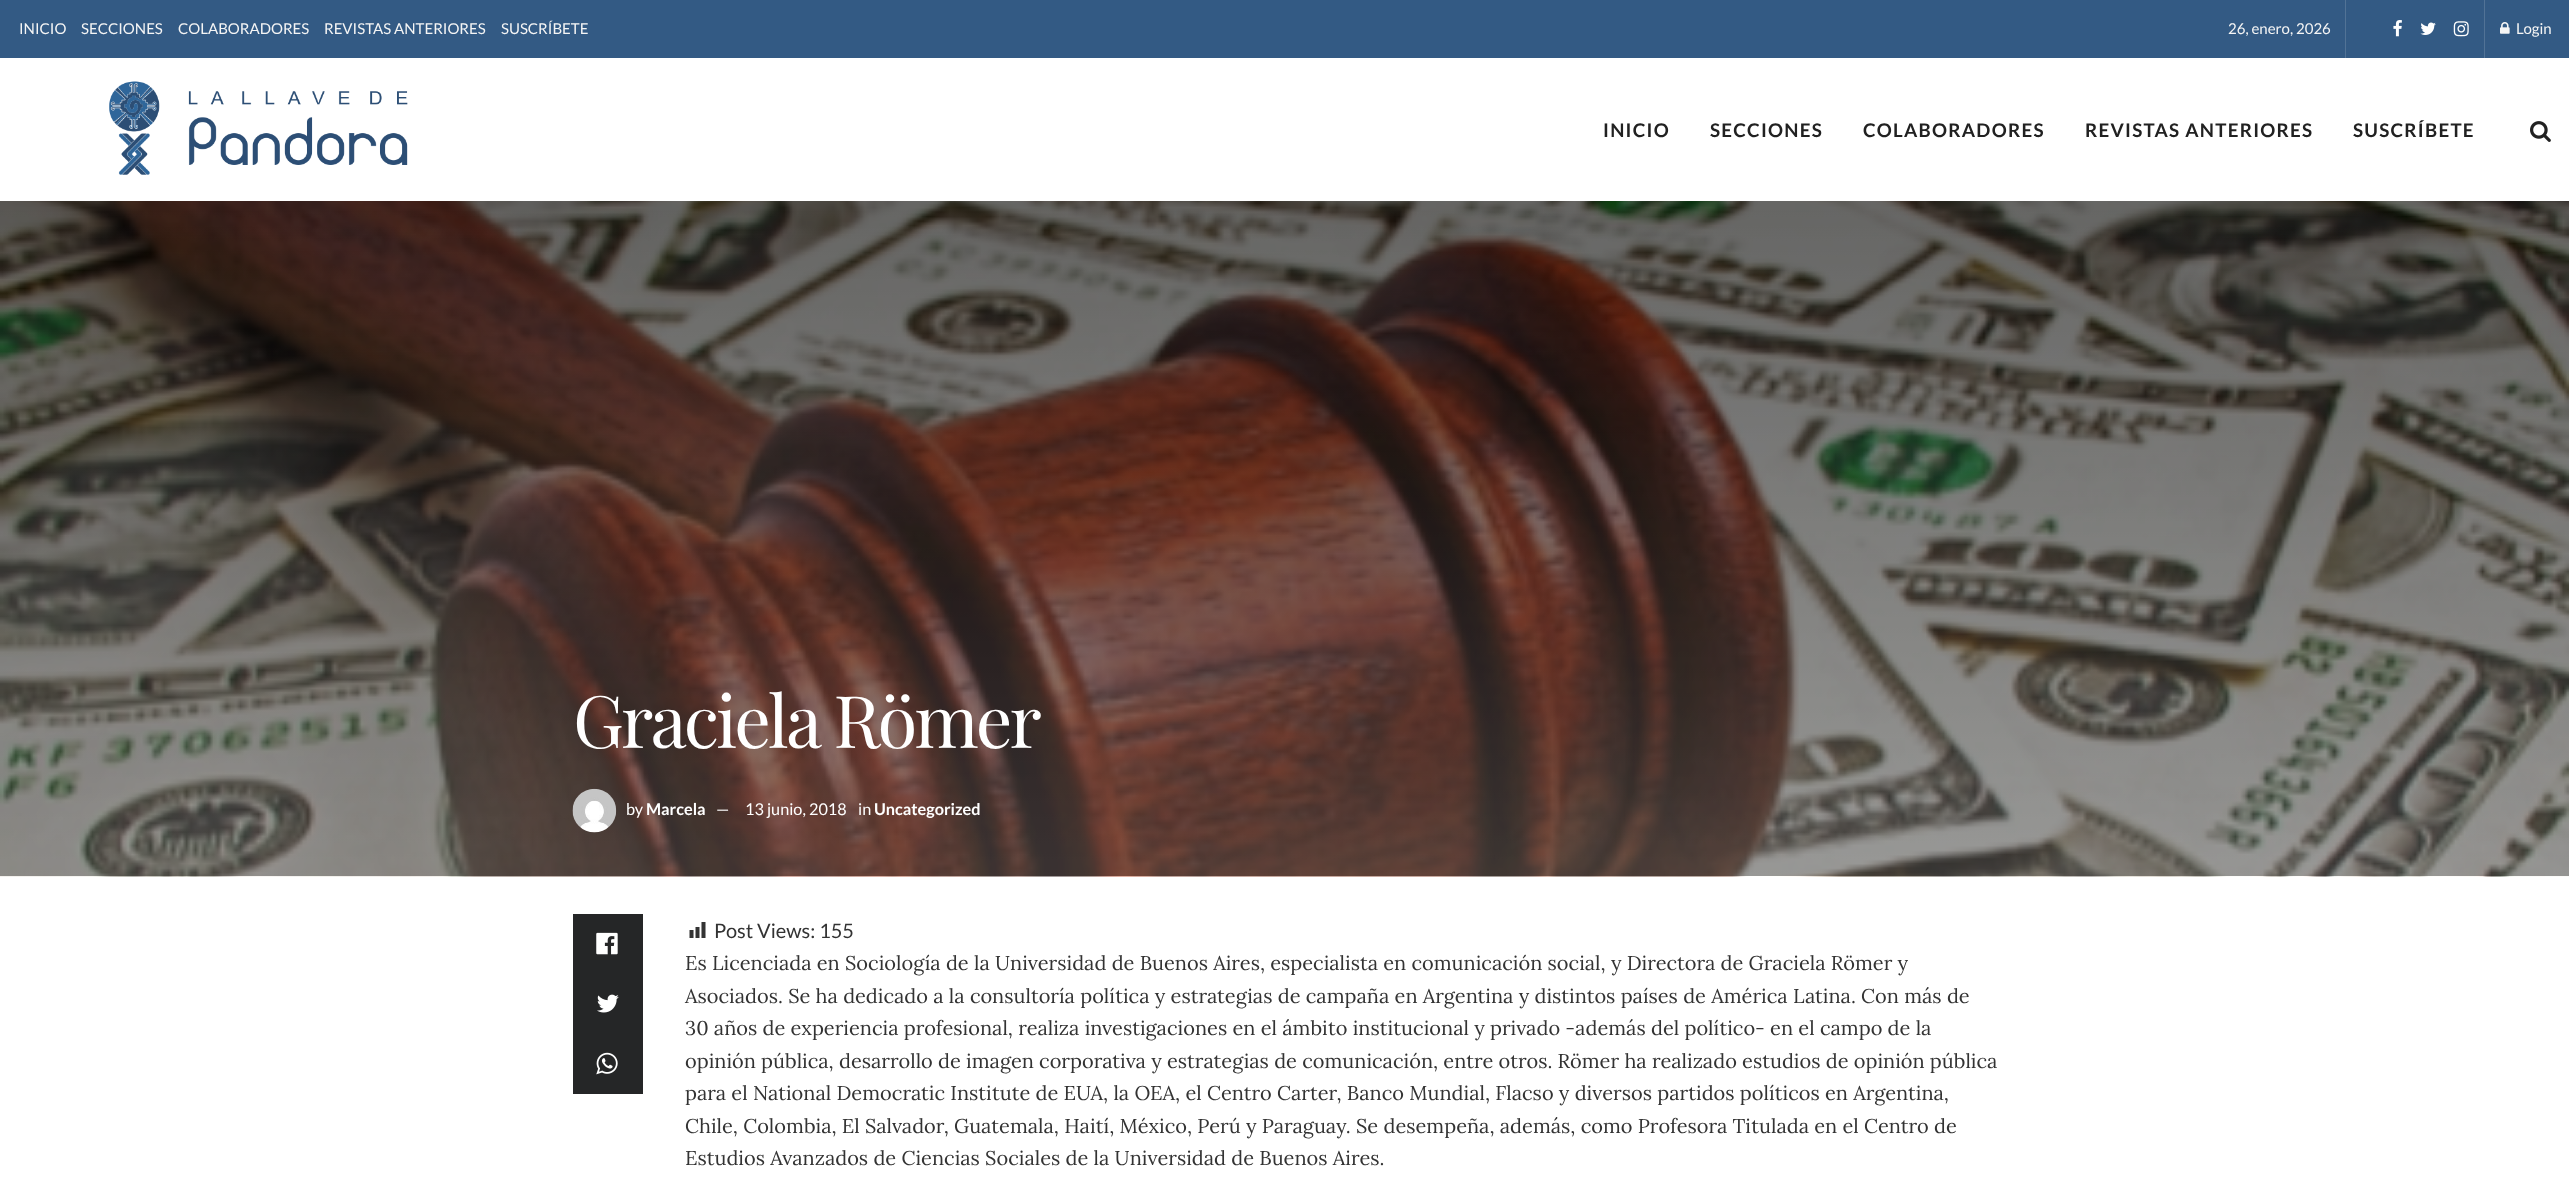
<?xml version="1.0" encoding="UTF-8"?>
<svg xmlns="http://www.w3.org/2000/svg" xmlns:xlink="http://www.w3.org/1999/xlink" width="2569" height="1202">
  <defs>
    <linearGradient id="g1" gradientUnits="userSpaceOnUse" x1="1285" y1="201" x2="1285" y2="876"><stop offset="0" stop-color="#000000" /><stop offset="1" stop-color="#545454" /></linearGradient>
  </defs>
  <rect width="100%" height="100%" fill="#ffffff" />
  <rect width="2569" height="58" fill="#335a84" />
  <rect x="2484" width="1" height="58" fill="#527396" />
  <rect x="2345" width="1" height="58" fill="#527396" />
  <image x="2393" y="20" width="9" height="17" xlink:href="image1.png" />
  <image x="2420" y="22" width="16" height="13" xlink:href="image2.png" />
  <image x="2453" y="21" width="16" height="16" xlink:href="image3.png" />
  <image x="2500" y="22" width="10" height="12" xlink:href="image4.png" />
  <image x="109" y="81" width="299" height="94" xlink:href="image5.png" />
  <image x="2530" y="121" width="21" height="21" xlink:href="image6.png" />
  <rect y="201" width="2569" height="675" fill="url(#g1)" />
  <image x="0" y="201" width="2569" height="676" xlink:href="image7.png" />
  <image x="572" y="788" width="45" height="45" xlink:href="image8.png" />
  <rect x="573" y="914" width="70" height="180" fill="#252627" />
  <image x="596" y="932" width="22" height="23" xlink:href="image9.png" />
  <image x="597" y="994" width="22" height="19" xlink:href="image10.png" />
  <image x="596" y="1052" width="22" height="23" xlink:href="image11.png" />
  <image x="689" y="922" width="17" height="16" xlink:href="image12.png" />
  <text x="19" y="34" style="font-family: Lato; font-size: 15px; fill: #f5f5f5">INICIO</text>
  <text x="81" y="34" style="font-family: Lato; font-size: 15px; fill: #f5f5f5">SECCIONES</text>
  <text x="178" y="34" style="font-family: Lato; font-size: 15px; fill: #f5f5f5">COLABORADORES</text>
  <text x="324" y="34" style="font-family: Lato; font-size: 15px; fill: #f5f5f5">REVISTAS ANTERIORES</text>
  <text x="501" y="34" style="font-family: Lato; font-size: 15px; fill: #f5f5f5">SUSCRÍBETE</text>
  <text x="2228" y="34" style="font-family: Lato; font-size: 15px; fill: #f5f5f5">26, enero, 2026</text>
  <text x="2516" y="34" style="font-family: Lato; font-size: 15px; fill: #f5f5f5">Login</text>
  <text x="1603" y="137" style="font-family: Lato; font-size: 18.75px; font-weight: bold; letter-spacing: 1.25px; fill: #212121">INICIO</text>
  <text x="1710" y="137" style="font-family: Lato; font-size: 18.75px; font-weight: bold; letter-spacing: 1.25px; fill: #212121">SECCIONES</text>
  <text x="1863" y="137" style="font-family: Lato; font-size: 18.75px; font-weight: bold; letter-spacing: 1.25px; fill: #212121">COLABORADORES</text>
  <text x="2085" y="137" style="font-family: Lato; font-size: 18.75px; font-weight: bold; letter-spacing: 1.25px; fill: #212121">REVISTAS ANTERIORES</text>
  <text x="2353" y="137" style="font-family: Lato; font-size: 18.75px; font-weight: bold; letter-spacing: 1.25px; fill: #212121">SUSCRÍBETE</text>
  <text x="573" y="748" style="font-family: Playfair Display; font-size: 72.5px; letter-spacing: -2.9px; fill: #ffffff">Graciela Römer</text>
  <text x="626" y="815" style="font-family: Lato; font-size: 16.25px; fill: #ffffff">by</text>
  <text x="646" y="815" style="font-family: Lato; font-size: 16.25px; font-weight: bold; fill: #ffffff">Marcela</text>
  <text x="716" y="815" style="font-family: Lato; font-size: 16.25px; fill: #ffffff">—</text>
  <text x="745" y="815" style="font-family: Lato; font-size: 16.25px; fill: #ffffff">13 junio, 2018</text>
  <text x="858" y="815" style="font-family: Lato; font-size: 16.25px; fill: #ffffff">in</text>
  <text x="874" y="815" style="font-family: Lato; font-size: 16.25px; font-weight: bold; fill: #ffffff">Uncategorized</text>
  <text x="714" y="938" style="font-family: Lato; font-size: 20px; fill: #333333">Post Views: 155</text>
  <text x="685" y="970" style="font-family: Lora; font-size: 20px; fill: #333333">Es Licenciada en Sociología de la Universidad de Buenos Aires, especialista en comunicación social, y Directora de Graciela Römer y</text>
  <text x="685" y="1003" style="font-family: Lora; font-size: 20px; fill: #333333">Asociados. Se ha dedicado a la consultoría política y estrategias de campaña en Argentina y distintos países de América Latina. Con más de</text>
  <text x="685" y="1035" style="font-family: Lora; font-size: 20px; fill: #333333">30 años de experiencia profesional, realiza investigaciones en el ámbito institucional y privado -además del político- en el campo de la</text>
  <text x="685" y="1068" style="font-family: Lora; font-size: 20px; fill: #333333">opinión pública, desarrollo de imagen corporativa y estrategias de comunicación, entre otros. Römer ha realizado estudios de opinión pública</text>
  <text x="685" y="1100" style="font-family: Lora; font-size: 20px; fill: #333333">para el National Democratic Institute de EUA, la OEA, el Centro Carter, Banco Mundial, Flacso y diversos partidos políticos en Argentina,</text>
  <text x="685" y="1133" style="font-family: Lora; font-size: 20px; fill: #333333">Chile, Colombia, El Salvador, Guatemala, Haití, México, Perú y Paraguay. Se desempeña, además, como Profesora Titulada en el Centro de</text>
  <text x="685" y="1165" style="font-family: Lora; font-size: 20px; fill: #333333">Estudios Avanzados de Ciencias Sociales de la Universidad de Buenos Aires.</text>
</svg>
